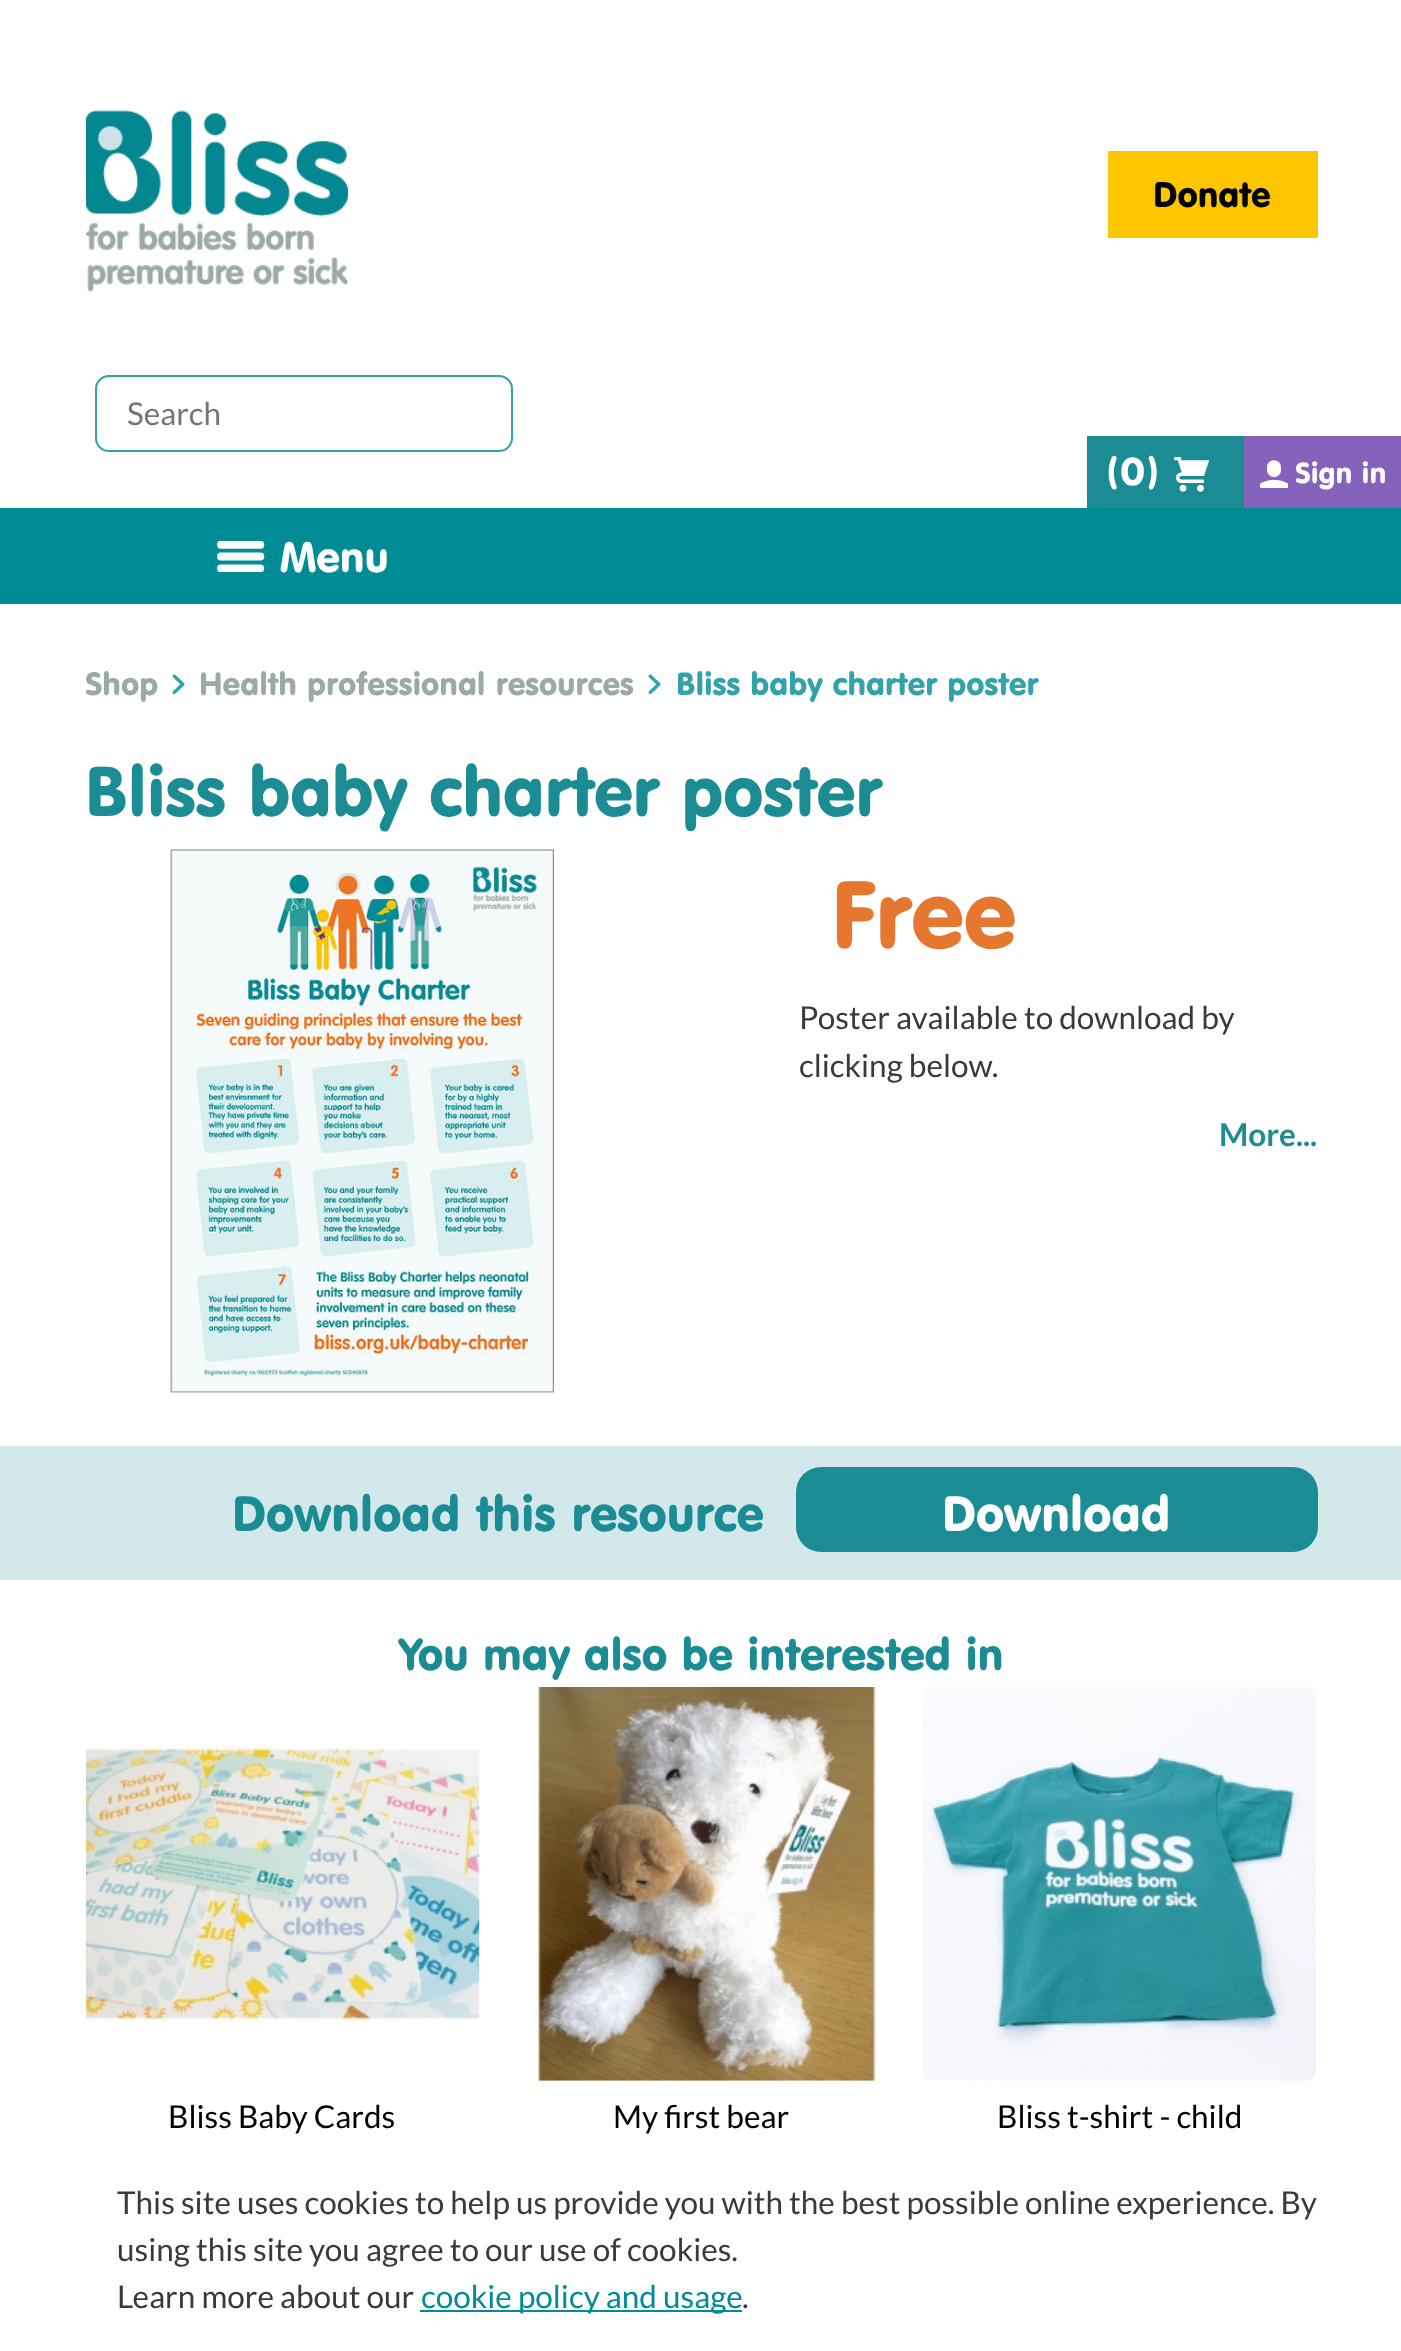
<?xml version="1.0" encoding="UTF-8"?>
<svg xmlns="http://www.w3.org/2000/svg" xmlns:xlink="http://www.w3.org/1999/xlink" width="1401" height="2351">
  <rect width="100%" height="100%" fill="#ffffff" />
  <image x="86" y="110" width="262" height="182" xlink:href="image1.png" />
  <rect x="1108" y="151" width="210" height="87" fill="#ffc600" />
  <rect x="96" y="376" width="416" height="75" rx="13" fill="none" stroke="#33a3aa" stroke-width="2" />
  <rect x="1087" y="436" width="157" height="72" fill="#1c8c94" />
  <image x="1174" y="457" width="35" height="35" xlink:href="image2.png" />
  <rect x="1244" y="436" width="157" height="72" fill="#8562bc" />
  <image x="1260" y="460" width="28" height="28" xlink:href="image3.png" />
  <rect y="508" width="1401" height="96" fill="#008c95" />
  <image x="217" y="541" width="48" height="31" xlink:href="image4.png" />
  <image x="172" y="674" width="13" height="20" xlink:href="image5.png" />
  <image x="648" y="674" width="13" height="20" xlink:href="image5.png" />
  <image x="169" y="846" width="387" height="549" xlink:href="image6.png" />
  <rect y="1446" width="1401" height="134" fill="#d2e8ea" />
  <rect x="796" y="1467" width="522" height="85" rx="25" fill="#1c8c94" />
  <image x="85" y="1745" width="395" height="277" xlink:href="image7.png" />
  <image x="535" y="1687" width="343" height="394" xlink:href="image8.png" />
  <image x="922" y="1687" width="394" height="394" xlink:href="image9.png" />
  <rect x="420" y="2310" width="322" height="2" fill="#008c95" />
  <text x="1153" y="207" style="font-family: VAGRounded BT; font-size: 35px; fill: #000000">Donate</text>
  <text x="127" y="425" style="font-family: Lato; font-size: 31.5px; fill: #757575">Search</text>
  <text x="1106" y="485" style="font-family: VAGRounded BT; font-size: 38px; letter-spacing: 2px; fill: #ffffff">(0)</text>
  <text x="1295" y="483" style="font-family: VAGRounded BT; font-size: 28.5px; fill: #ffffff">Sign in</text>
  <text x="280" y="572" style="font-family: VAGRounded BT; font-size: 42px; fill: #ffffff">Menu</text>
  <text x="85" y="695" style="font-family: VAGRounded BT; font-size: 31.5px; fill: #9ca9a9">Shop</text>
  <text x="199" y="695" style="font-family: VAGRounded BT; font-size: 31.5px; fill: #9ca9a9">Health professional resources</text>
  <text x="676" y="695" style="font-family: VAGRounded BT; font-size: 31.5px; fill: #33a3aa">Bliss baby charter poster</text>
  <text x="85" y="816" style="font-family: VAGRounded BT; font-size: 69.25px; fill: #1c8c94">Bliss baby charter poster</text>
  <text x="831" y="948" style="font-family: VAGRounded BT; font-size: 94px; fill: #e57730">Free</text>
  <text x="799" y="1029" style="font-family: Lato; font-size: 31.5px; fill: #3a3a3a">Poster available to download by</text>
  <text x="799" y="1077" style="font-family: Lato; font-size: 31.5px; fill: #3a3a3a">clicking below.</text>
  <text x="1219" y="1146" style="font-family: Lato; font-size: 31.5px; font-weight: bold; fill: #1c8c94">More...</text>
  <text x="232" y="1531" style="font-family: VAGRounded BT; font-size: 48.75px; fill: #1c8c94">Download this resource</text>
  <text x="942" y="1531" style="font-family: VAGRounded BT; font-size: 48.75px; fill: #ffffff">Download</text>
  <text x="399" y="1670" style="font-family: VAGRounded BT; font-size: 44.1px; fill: #1c8c94">You may also be interested in</text>
  <text x="168" y="2128" style="font-family: Lato; font-size: 31.5px; fill: #000000">Bliss Baby Cards</text>
  <text x="613" y="2128" style="font-family: Lato; font-size: 31.5px; fill: #000000">My first bear</text>
  <text x="997" y="2128" style="font-family: Lato; font-size: 31.5px; fill: #000000">Bliss t-shirt - child</text>
  <text x="117" y="2214" style="font-family: Lato; font-size: 31.5px; fill: #3a3a3a">This site uses cookies to help us provide you with the best possible online experience. By</text>
  <text x="117" y="2261" style="font-family: Lato; font-size: 31.5px; fill: #3a3a3a">using this site you agree to our use of cookies.</text>
  <text x="117" y="2308" style="font-family: Lato; font-size: 31.5px; fill: #3a3a3a">Learn more about our</text>
  <text x="421" y="2308" style="font-family: Lato; font-size: 31.5px; fill: #008c95">cookie policy and usage</text>
  <text x="742" y="2308" style="font-family: Lato; font-size: 31.5px; fill: #3a3a3a">.</text>
</svg>
